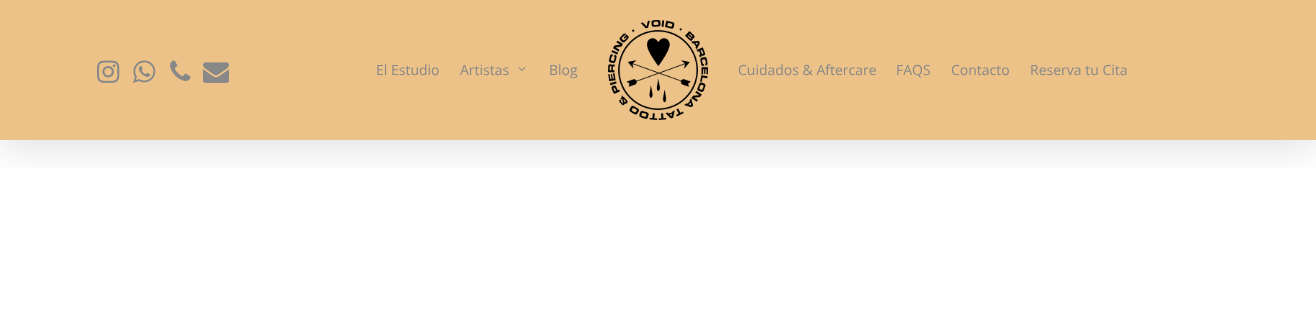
<?xml version="1.0" encoding="UTF-8"?>
<svg xmlns="http://www.w3.org/2000/svg" xmlns:xlink="http://www.w3.org/1999/xlink" width="1316" height="325">
  <defs>
    <clipPath id="clip1"><rect x="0" y="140" width="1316" height="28" /></clipPath>
  </defs>
  <rect width="100%" height="100%" fill="#ffffff" />
  <rect width="1316" height="140" fill="#ecc288" />
  <g clip-path="url(#clip1)">
    <rect y="3" width="1316" height="140" fill="#000000" fill-opacity="0.15" filter="blur(22.5px)" />
  </g>
  <image x="608" y="20" width="100" height="100" xlink:href="image1.png" />
  <image x="97" y="60" width="23" height="23" xlink:href="image2.png" />
  <image x="133" y="60" width="23" height="23" xlink:href="image3.png" />
  <image x="170" y="60" width="21" height="21" xlink:href="image4.png" />
  <image x="203" y="62" width="26" height="21" xlink:href="image5.png" />
  <image x="518" y="67" width="8" height="4" xlink:href="image6.png" />
  <text x="376" y="75" style="font-family: Open Sans; font-size: 14px; fill: #888888">El Estudio</text>
  <text x="460" y="75" style="font-family: Open Sans; font-size: 14px; fill: #888888">Artistas</text>
  <text x="549" y="75" style="font-family: Open Sans; font-size: 14px; fill: #888888">Blog</text>
  <text x="738" y="75" style="font-family: Open Sans; font-size: 14px; fill: #888888">Cuidados &amp; Aftercare</text>
  <text x="896" y="75" style="font-family: Open Sans; font-size: 14px; fill: #888888">FAQS</text>
  <text x="951" y="75" style="font-family: Open Sans; font-size: 14px; fill: #888888">Contacto</text>
  <text x="1030" y="75" style="font-family: Open Sans; font-size: 14px; fill: #888888">Reserva tu Cita</text>
</svg>
